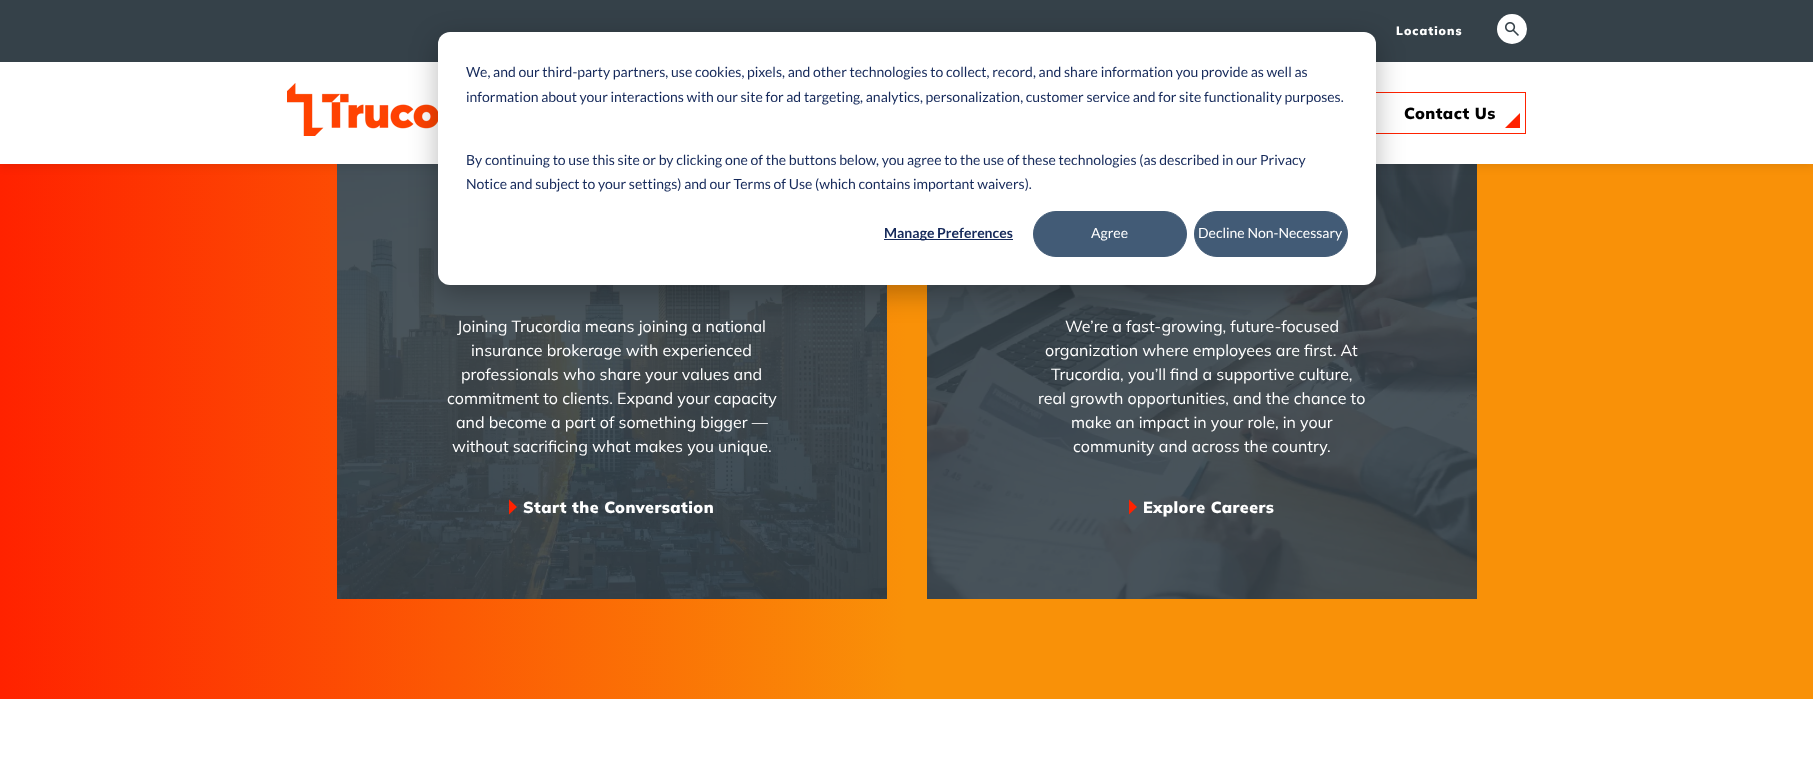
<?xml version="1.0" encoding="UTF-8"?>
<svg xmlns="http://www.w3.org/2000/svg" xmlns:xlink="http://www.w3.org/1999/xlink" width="1813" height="774">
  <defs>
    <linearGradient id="g1" gradientUnits="userSpaceOnUse" x1="0" y1="281" x2="1813" y2="281"><stop offset="0" stop-color="#ff2200" /><stop offset="0.5" stop-color="#f99108" /></linearGradient>
  </defs>
  <rect width="100%" height="100%" fill="#ffffff" />
  <rect y="164" width="1813" height="535" fill="url(#g1)" />
  <image x="337" y="164" width="550" height="435" xlink:href="image3.png" />
  <image x="927" y="164" width="550" height="435" xlink:href="image4.png" />
  <rect y="2" width="1813" height="164" fill="#000000" fill-opacity="0.1" filter="blur(5px)" />
  <rect width="1813" height="62" fill="#354149" />
  <rect y="62" width="1813" height="102" fill="#ffffff" />
  <image x="287" y="83" width="151" height="53" xlink:href="image2.png" />
  <rect x="1373.5" y="92.5" width="152" height="41" fill="none" stroke="#ff2200" />
  <rect x="438" y="40" width="938" height="253" rx="12" fill="#000000" fill-opacity="0.28" filter="blur(14px)" />
  <rect x="438" y="32" width="938" height="253" rx="12" fill="#ffffff" />
  <rect x="884" y="239" width="129" height="1" fill="#15295a" />
  <rect x="1033.5" y="211.5" width="153" height="45" rx="22.5" fill="#425b76" stroke="#425b76" />
  <rect x="1194.5" y="211.5" width="153" height="45" rx="22.5" fill="#425b76" stroke="#425b76" />
  <circle cx="1512" cy="29" r="15" fill="#ffffff" />
  <image x="1505" y="22" width="14" height="14" xlink:href="image1.png" />
  <path d="M 1520 113 v 15 h -15 z" fill="#ff2200" />
  <path d="M 509 499.5 l 8 7.5 l -8 7.5 z" fill="#ff2200" />
  <path d="M 1129 499.5 l 8 7.5 l -8 7.5 z" fill="#ff2200" />
  <text x="466" y="77" style="font-family: Lato; font-size: 14px; fill: #15295a">We, and our third-party partners, use cookies, pixels, and other technologies to collect, record, and share information you provide as well as</text>
  <text x="466" y="102" style="font-family: Lato; font-size: 14px; fill: #15295a">information about your interactions with our site for ad targeting, analytics, personalization, customer service and for site functionality purposes.</text>
  <text x="466" y="165" style="font-family: Lato; font-size: 14px; fill: #15295a">By continuing to use this site or by clicking one of the buttons below, you agree to the use of these technologies (as described in our Privacy</text>
  <text x="466" y="189" style="font-family: Lato; font-size: 14px; fill: #15295a">Notice and subject to your settings) and our Terms of Use (which contains important waivers).</text>
  <text x="884" y="238" style="font-family: Lato; font-size: 14px; font-weight: bold; fill: #15295a">Manage Preferences</text>
  <text x="1091" y="238" style="font-family: Lato; font-size: 14px; fill: #ffffff">Agree</text>
  <text x="1198" y="238" style="font-family: Lato; font-size: 14px; fill: #ffffff">Decline Non-Necessary</text>
  <text x="1396" y="35" style="font-family: Mulish; font-size: 12px; font-weight: 900; letter-spacing: 1px; fill: #ffffff">Locations</text>
  <text x="1404" y="119" style="font-family: Mulish; font-size: 16px; font-weight: 900; letter-spacing: 0.5px; fill: #000000">Contact Us</text>
  <text x="457" y="332" style="font-family: Mulish; font-size: 16px; fill: #ffffff">Joining Trucordia means joining a national</text>
  <text x="471" y="356" style="font-family: Mulish; font-size: 16px; fill: #ffffff">insurance brokerage with experienced</text>
  <text x="461" y="380" style="font-family: Mulish; font-size: 16px; fill: #ffffff">professionals who share your values and</text>
  <text x="447" y="404" style="font-family: Mulish; font-size: 16px; fill: #ffffff">commitment to clients. Expand your capacity</text>
  <text x="456" y="428" style="font-family: Mulish; font-size: 16px; fill: #ffffff">and become a part of something bigger —</text>
  <text x="452" y="452" style="font-family: Mulish; font-size: 16px; fill: #ffffff">without sacrificing what makes you unique.</text>
  <text x="523" y="513" style="font-family: Mulish; font-size: 16px; font-weight: 900; letter-spacing: 0.5px; fill: #ffffff">Start the Conversation</text>
  <text x="1065" y="332" style="font-family: Mulish; font-size: 16px; fill: #ffffff">We’re a fast-growing, future-focused</text>
  <text x="1045" y="356" style="font-family: Mulish; font-size: 16px; fill: #ffffff">organization where employees are first. At</text>
  <text x="1051" y="380" style="font-family: Mulish; font-size: 16px; fill: #ffffff">Trucordia, you’ll find a supportive culture,</text>
  <text x="1038" y="404" style="font-family: Mulish; font-size: 16px; fill: #ffffff">real growth opportunities, and the chance to</text>
  <text x="1071" y="428" style="font-family: Mulish; font-size: 16px; fill: #ffffff">make an impact in your role, in your</text>
  <text x="1073" y="452" style="font-family: Mulish; font-size: 16px; fill: #ffffff">community and across the country.</text>
  <text x="1143" y="513" style="font-family: Mulish; font-size: 16px; font-weight: 900; letter-spacing: 0.5px; fill: #ffffff">Explore Careers</text>
</svg>
